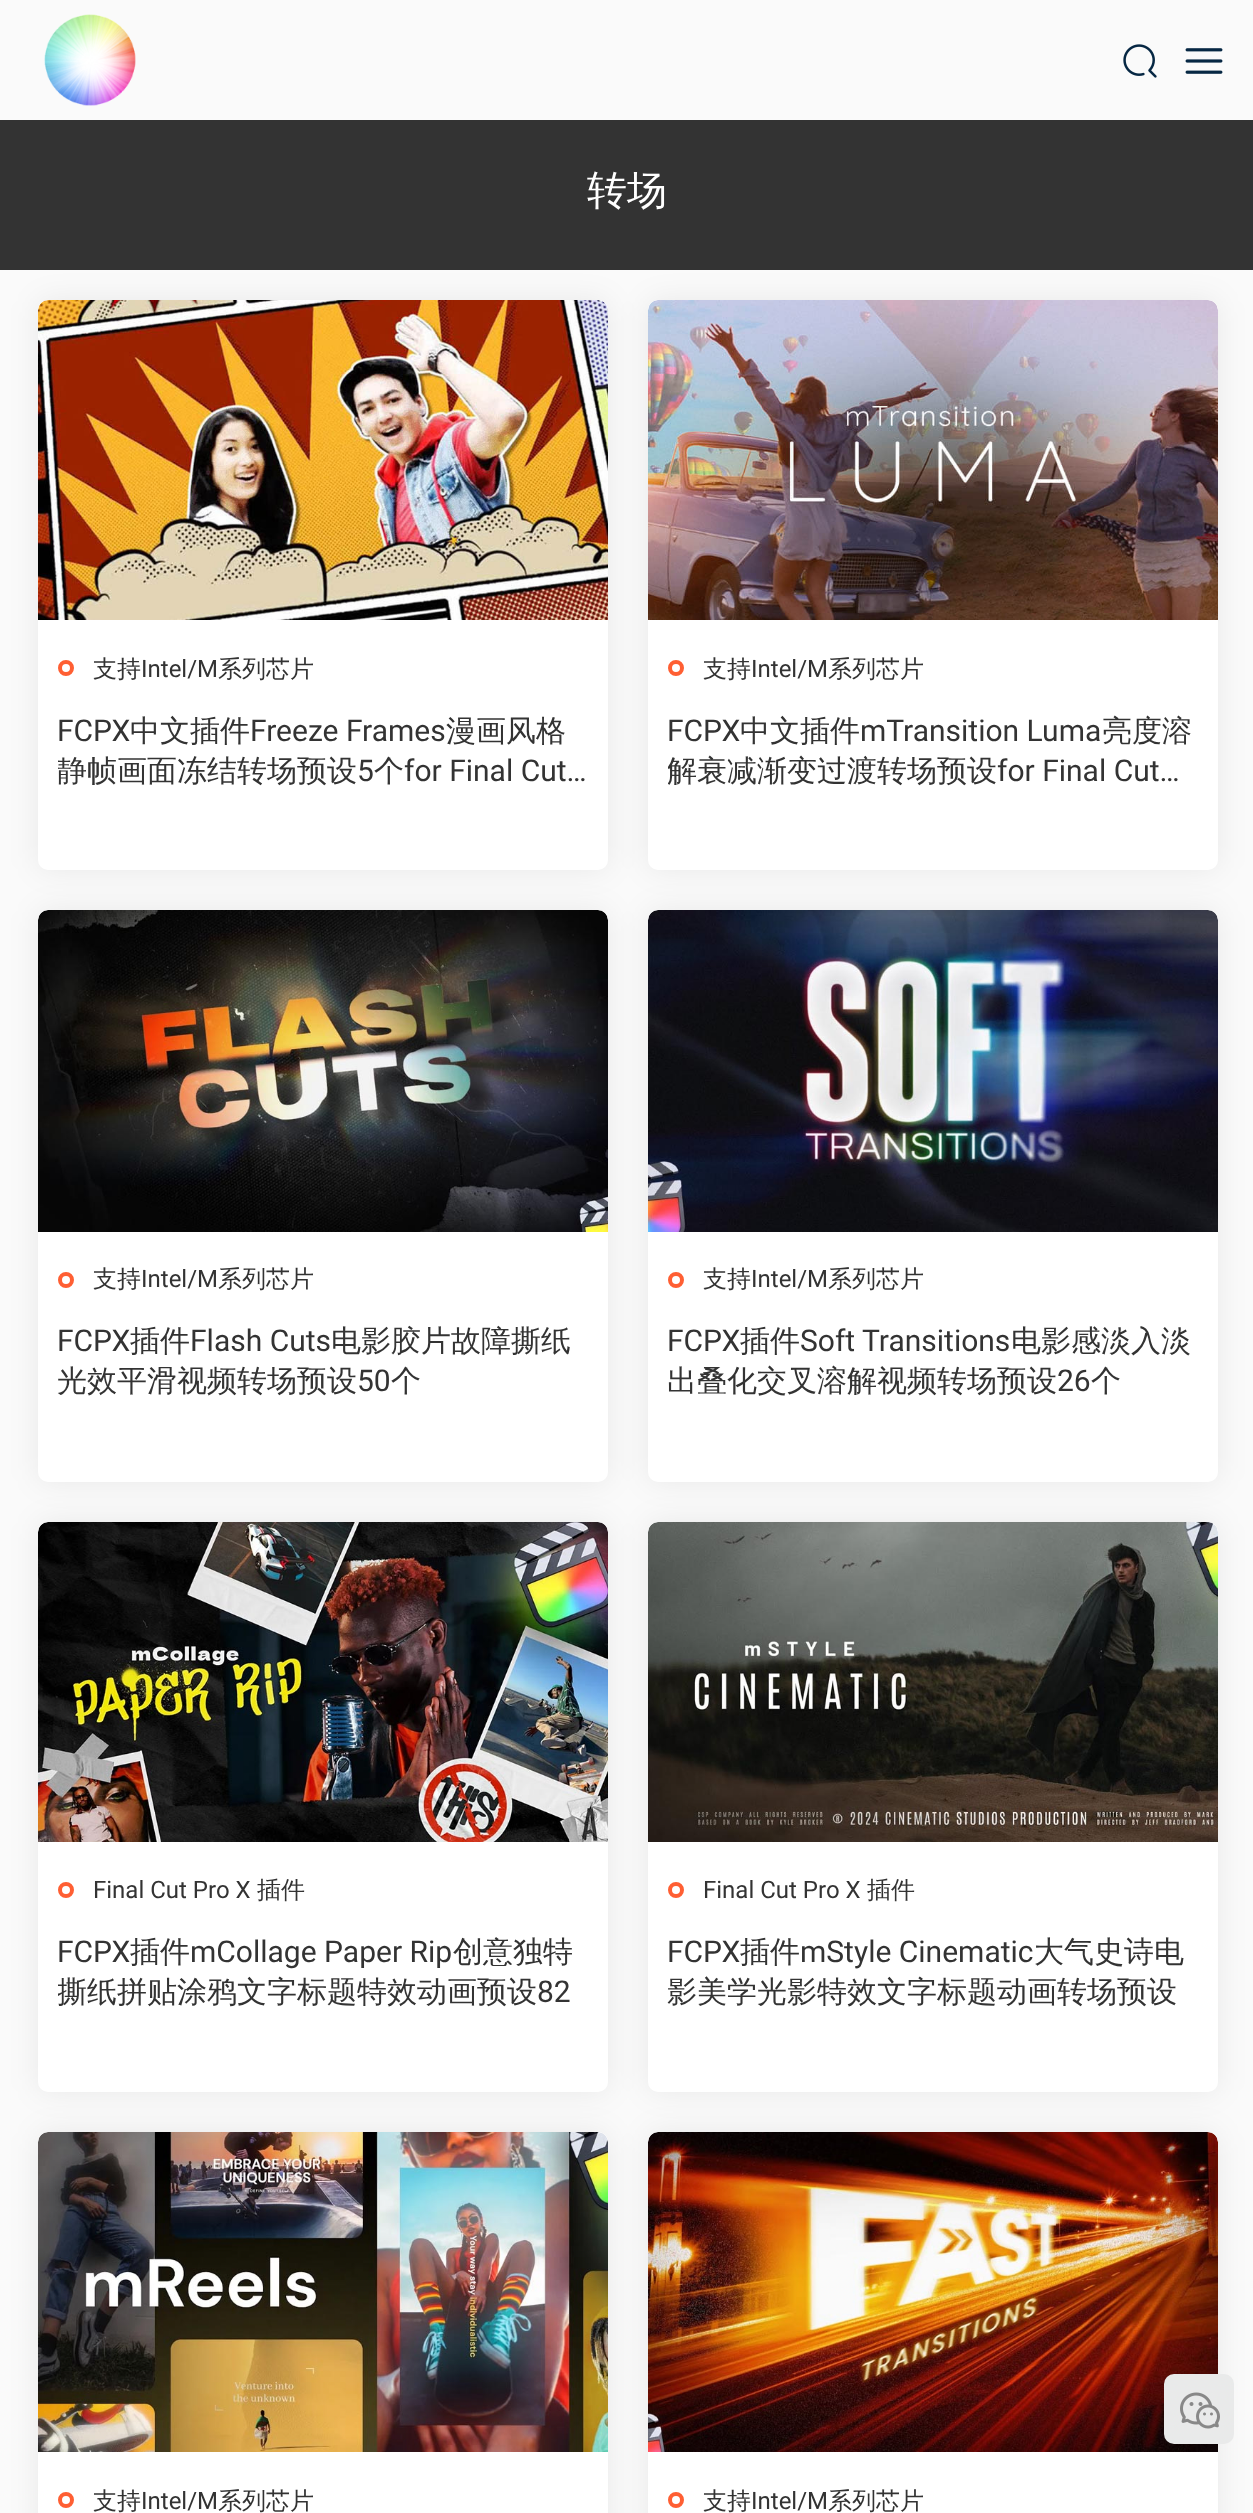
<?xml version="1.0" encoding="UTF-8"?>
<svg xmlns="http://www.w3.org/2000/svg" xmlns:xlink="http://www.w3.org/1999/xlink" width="1253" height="2513">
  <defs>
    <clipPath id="clip1"><rect x="58" y="710" width="530" height="80" /></clipPath>
    <clipPath id="clip2"><rect x="668" y="710" width="530" height="80" /></clipPath>
    <clipPath id="clip3"><rect x="58" y="1932" width="530" height="80" /></clipPath>
  </defs>
  <rect width="100%" height="100%" fill="#fafafa" />
  <image x="44" y="14" width="92" height="92" xlink:href="image1.png" />
  <image x="1123" y="44" width="34" height="34" xlink:href="image2.png" />
  <image x="1185" y="48" width="38" height="26" xlink:href="image3.png" />
  <rect y="120" width="1253" height="150" fill="#333333" />
  <rect x="38" y="300" width="570" height="570" rx="10" fill="#000000" fill-opacity="0.07" filter="blur(15px)" />
  <rect x="38" y="300" width="570" height="570" rx="10" fill="#ffffff" />
  <path d="M 48 300 h 550 c 5.5 0 10 4.5 10 10 v 310 h -570 v -310 c 0 -5.5 4.5 -10 10 -10 z" fill="#ffffff" />
  <image x="38" y="300" width="570" height="320" xlink:href="image4.png" />
  <circle cx="66" cy="668" r="6" fill="none" stroke="#ff5f33" stroke-width="4" />
  <rect x="648" y="300" width="570" height="570" rx="10" fill="#000000" fill-opacity="0.07" filter="blur(15px)" />
  <rect x="648" y="300" width="570" height="570" rx="10" fill="#ffffff" />
  <path d="M 658 300 h 550 c 5.5 0 10 4.5 10 10 v 310 h -570 v -310 c 0 -5.5 4.5 -10 10 -10 z" fill="#ffffff" />
  <image x="648" y="300" width="570" height="320" xlink:href="image5.png" />
  <circle cx="676" cy="668" r="6" fill="none" stroke="#ff5f33" stroke-width="4" />
  <rect x="38" y="910" width="570" height="572" rx="10" fill="#000000" fill-opacity="0.07" filter="blur(15px)" />
  <rect x="38" y="910" width="570" height="572" rx="10" fill="#ffffff" />
  <path d="M 48 910 h 550 c 5.5 0 10 4.5 10 10 v 312 h -570 v -312 c 0 -5.5 4.5 -10 10 -10 z" fill="#ffffff" />
  <image x="38" y="910" width="570" height="322" xlink:href="image6.png" />
  <circle cx="66" cy="1280" r="6" fill="none" stroke="#ff5f33" stroke-width="4" />
  <rect x="648" y="910" width="570" height="572" rx="10" fill="#000000" fill-opacity="0.07" filter="blur(15px)" />
  <rect x="648" y="910" width="570" height="572" rx="10" fill="#ffffff" />
  <path d="M 658 910 h 550 c 5.5 0 10 4.5 10 10 v 312 h -570 v -312 c 0 -5.5 4.5 -10 10 -10 z" fill="#ffffff" />
  <image x="648" y="910" width="570" height="322" xlink:href="image7.png" />
  <circle cx="676" cy="1280" r="6" fill="none" stroke="#ff5f33" stroke-width="4" />
  <rect x="38" y="1522" width="570" height="570" rx="10" fill="#000000" fill-opacity="0.07" filter="blur(15px)" />
  <rect x="38" y="1522" width="570" height="570" rx="10" fill="#ffffff" />
  <path d="M 48 1522 h 550 c 5.5 0 10 4.5 10 10 v 310 h -570 v -310 c 0 -5.5 4.5 -10 10 -10 z" fill="#ffffff" />
  <image x="38" y="1522" width="570" height="320" xlink:href="image8.png" />
  <circle cx="66" cy="1890" r="6" fill="none" stroke="#ff5f33" stroke-width="4" />
  <rect x="648" y="1522" width="570" height="570" rx="10" fill="#000000" fill-opacity="0.07" filter="blur(15px)" />
  <rect x="648" y="1522" width="570" height="570" rx="10" fill="#ffffff" />
  <path d="M 658 1522 h 550 c 5.5 0 10 4.5 10 10 v 310 h -570 v -310 c 0 -5.5 4.5 -10 10 -10 z" fill="#ffffff" />
  <image x="648" y="1522" width="570" height="320" xlink:href="image9.png" />
  <circle cx="676" cy="1890" r="6" fill="none" stroke="#ff5f33" stroke-width="4" />
  <rect x="38" y="2132" width="570" height="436" rx="10" fill="#000000" fill-opacity="0.07" filter="blur(15px)" />
  <rect x="38" y="2132" width="570" height="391" rx="10" fill="#ffffff" />
  <path d="M 48 2132 h 550 c 5.5 0 10 4.5 10 10 v 310 h -570 v -310 c 0 -5.5 4.5 -10 10 -10 z" fill="#ffffff" />
  <image x="38" y="2132" width="570" height="320" xlink:href="image10.png" />
  <circle cx="66" cy="2500" r="6" fill="none" stroke="#ff5f33" stroke-width="4" />
  <rect x="648" y="2132" width="570" height="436" rx="10" fill="#000000" fill-opacity="0.07" filter="blur(15px)" />
  <rect x="648" y="2132" width="570" height="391" rx="10" fill="#ffffff" />
  <path d="M 658 2132 h 550 c 5.5 0 10 4.5 10 10 v 310 h -570 v -310 c 0 -5.5 4.5 -10 10 -10 z" fill="#ffffff" />
  <image x="648" y="2132" width="570" height="320" xlink:href="image11.png" />
  <circle cx="676" cy="2500" r="6" fill="none" stroke="#ff5f33" stroke-width="4" />
  <rect x="1164" y="2374" width="70" height="70" rx="10" fill="#e9eaea" />
  <image x="1180" y="2392" width="40" height="37" xlink:href="image12.png" />
  <text x="587" y="204" style="font-family: WenQuanYi Zen Hei; font-size: 40px; font-weight: 500; fill: #ffffff">转场</text>
  <text x="93" y="677" style="font-family: WenQuanYi Zen Hei; font-size: 24px; font-weight: 500; fill: #333333">支持</text>
  <text x="141" y="677" style="font-family: Roboto; font-size: 24px; fill: #333333">Intel/M</text>
  <text x="218" y="677" style="font-family: WenQuanYi Zen Hei; font-size: 24px; font-weight: 500; fill: #333333">系列芯片</text>
  <text x="57" y="741" style="font-family: Roboto; font-size: 30px; fill: #333333">FCPX</text>
  <text x="130" y="741" style="font-family: WenQuanYi Zen Hei; font-size: 30px; font-weight: 500; fill: #333333">中文插件</text>
  <text x="250" y="741" style="font-family: Roboto; font-size: 30px; fill: #333333">Freeze Frames</text>
  <text x="446" y="741" style="font-family: WenQuanYi Zen Hei; font-size: 30px; font-weight: 500; fill: #333333">漫画风格</text>
  <g clip-path="url(#clip1)">
    <text x="57" y="781" style="font-family: WenQuanYi Zen Hei; font-size: 30px; font-weight: 500; fill: #333333">静帧画面冻结转场预设</text>
  </g>
  <text x="357" y="781" style="font-family: Roboto; font-size: 30px; fill: #333333">5</text>
  <text x="374" y="781" style="font-family: WenQuanYi Zen Hei; font-size: 30px; font-weight: 500; fill: #333333">个</text>
  <text x="404" y="781" style="font-family: Roboto; font-size: 30px; fill: #333333">for Final Cut…</text>
  <text x="703" y="677" style="font-family: WenQuanYi Zen Hei; font-size: 24px; font-weight: 500; fill: #333333">支持</text>
  <text x="751" y="677" style="font-family: Roboto; font-size: 24px; fill: #333333">Intel/M</text>
  <text x="828" y="677" style="font-family: WenQuanYi Zen Hei; font-size: 24px; font-weight: 500; fill: #333333">系列芯片</text>
  <text x="667" y="741" style="font-family: Roboto; font-size: 30px; fill: #333333">FCPX</text>
  <text x="740" y="741" style="font-family: WenQuanYi Zen Hei; font-size: 30px; font-weight: 500; fill: #333333">中文插件</text>
  <text x="860" y="741" style="font-family: Roboto; font-size: 30px; fill: #333333">mTransition Luma</text>
  <text x="1102" y="741" style="font-family: WenQuanYi Zen Hei; font-size: 30px; font-weight: 500; fill: #333333">亮度溶</text>
  <g clip-path="url(#clip2)">
    <text x="667" y="781" style="font-family: WenQuanYi Zen Hei; font-size: 30px; font-weight: 500; fill: #333333">解衰减渐变过渡转场预设</text>
  </g>
  <text x="997" y="781" style="font-family: Roboto; font-size: 30px; fill: #333333">for Final Cut…</text>
  <text x="93" y="1287" style="font-family: WenQuanYi Zen Hei; font-size: 24px; font-weight: 500; fill: #333333">支持</text>
  <text x="141" y="1287" style="font-family: Roboto; font-size: 24px; fill: #333333">Intel/M</text>
  <text x="218" y="1287" style="font-family: WenQuanYi Zen Hei; font-size: 24px; font-weight: 500; fill: #333333">系列芯片</text>
  <text x="57" y="1351" style="font-family: Roboto; font-size: 30px; fill: #333333">FCPX</text>
  <text x="130" y="1351" style="font-family: WenQuanYi Zen Hei; font-size: 30px; font-weight: 500; fill: #333333">插件</text>
  <text x="190" y="1351" style="font-family: Roboto; font-size: 30px; fill: #333333">Flash Cuts</text>
  <text x="331" y="1351" style="font-family: WenQuanYi Zen Hei; font-size: 30px; font-weight: 500; fill: #333333">电影胶片故障撕纸</text>
  <text x="57" y="1391" style="font-family: WenQuanYi Zen Hei; font-size: 30px; font-weight: 500; fill: #333333">光效平滑视频转场预设</text>
  <text x="357" y="1391" style="font-family: Roboto; font-size: 30px; fill: #333333">50</text>
  <text x="391" y="1391" style="font-family: WenQuanYi Zen Hei; font-size: 30px; font-weight: 500; fill: #333333">个</text>
  <text x="703" y="1287" style="font-family: WenQuanYi Zen Hei; font-size: 24px; font-weight: 500; fill: #333333">支持</text>
  <text x="751" y="1287" style="font-family: Roboto; font-size: 24px; fill: #333333">Intel/M</text>
  <text x="828" y="1287" style="font-family: WenQuanYi Zen Hei; font-size: 24px; font-weight: 500; fill: #333333">系列芯片</text>
  <text x="667" y="1351" style="font-family: Roboto; font-size: 30px; fill: #333333">FCPX</text>
  <text x="740" y="1351" style="font-family: WenQuanYi Zen Hei; font-size: 30px; font-weight: 500; fill: #333333">插件</text>
  <text x="800" y="1351" style="font-family: Roboto; font-size: 30px; fill: #333333">Soft Transitions</text>
  <text x="1011" y="1351" style="font-family: WenQuanYi Zen Hei; font-size: 30px; font-weight: 500; fill: #333333">电影感淡入淡</text>
  <text x="667" y="1391" style="font-family: WenQuanYi Zen Hei; font-size: 30px; font-weight: 500; fill: #333333">出叠化交叉溶解视频转场预设</text>
  <text x="1057" y="1391" style="font-family: Roboto; font-size: 30px; fill: #333333">26</text>
  <text x="1091" y="1391" style="font-family: WenQuanYi Zen Hei; font-size: 30px; font-weight: 500; fill: #333333">个</text>
  <text x="93" y="1898" style="font-family: Roboto; font-size: 24px; fill: #333333">Final Cut Pro X</text>
  <text x="257" y="1898" style="font-family: WenQuanYi Zen Hei; font-size: 24px; font-weight: 500; fill: #333333">插件</text>
  <text x="57" y="1962" style="font-family: Roboto; font-size: 30px; fill: #333333">FCPX</text>
  <text x="130" y="1962" style="font-family: WenQuanYi Zen Hei; font-size: 30px; font-weight: 500; fill: #333333">插件</text>
  <text x="190" y="1962" style="font-family: Roboto; font-size: 30px; fill: #333333">mCollage Paper Rip</text>
  <text x="453" y="1962" style="font-family: WenQuanYi Zen Hei; font-size: 30px; font-weight: 500; fill: #333333">创意独特</text>
  <g clip-path="url(#clip3)">
    <text x="57" y="2002" style="font-family: WenQuanYi Zen Hei; font-size: 30px; font-weight: 500; fill: #333333">撕纸拼贴涂鸦文字标题特效动画预设</text>
  </g>
  <text x="537" y="2002" style="font-family: Roboto; font-size: 30px; fill: #333333">82</text>
  <text x="703" y="1898" style="font-family: Roboto; font-size: 24px; fill: #333333">Final Cut Pro X</text>
  <text x="867" y="1898" style="font-family: WenQuanYi Zen Hei; font-size: 24px; font-weight: 500; fill: #333333">插件</text>
  <text x="667" y="1962" style="font-family: Roboto; font-size: 30px; fill: #333333">FCPX</text>
  <text x="740" y="1962" style="font-family: WenQuanYi Zen Hei; font-size: 30px; font-weight: 500; fill: #333333">插件</text>
  <text x="800" y="1962" style="font-family: Roboto; font-size: 30px; fill: #333333">mStyle Cinematic</text>
  <text x="1034" y="1962" style="font-family: WenQuanYi Zen Hei; font-size: 30px; font-weight: 500; fill: #333333">大气史诗电</text>
  <text x="667" y="2002" style="font-family: WenQuanYi Zen Hei; font-size: 30px; font-weight: 500; fill: #333333">影美学光影特效文字标题动画转场预设</text>
  <text x="93" y="2509" style="font-family: WenQuanYi Zen Hei; font-size: 24px; font-weight: 500; fill: #333333">支持</text>
  <text x="141" y="2509" style="font-family: Roboto; font-size: 24px; fill: #333333">Intel/M</text>
  <text x="218" y="2509" style="font-family: WenQuanYi Zen Hei; font-size: 24px; font-weight: 500; fill: #333333">系列芯片</text>
  <text x="703" y="2509" style="font-family: WenQuanYi Zen Hei; font-size: 24px; font-weight: 500; fill: #333333">支持</text>
  <text x="751" y="2509" style="font-family: Roboto; font-size: 24px; fill: #333333">Intel/M</text>
  <text x="828" y="2509" style="font-family: WenQuanYi Zen Hei; font-size: 24px; font-weight: 500; fill: #333333">系列芯片</text>
</svg>
